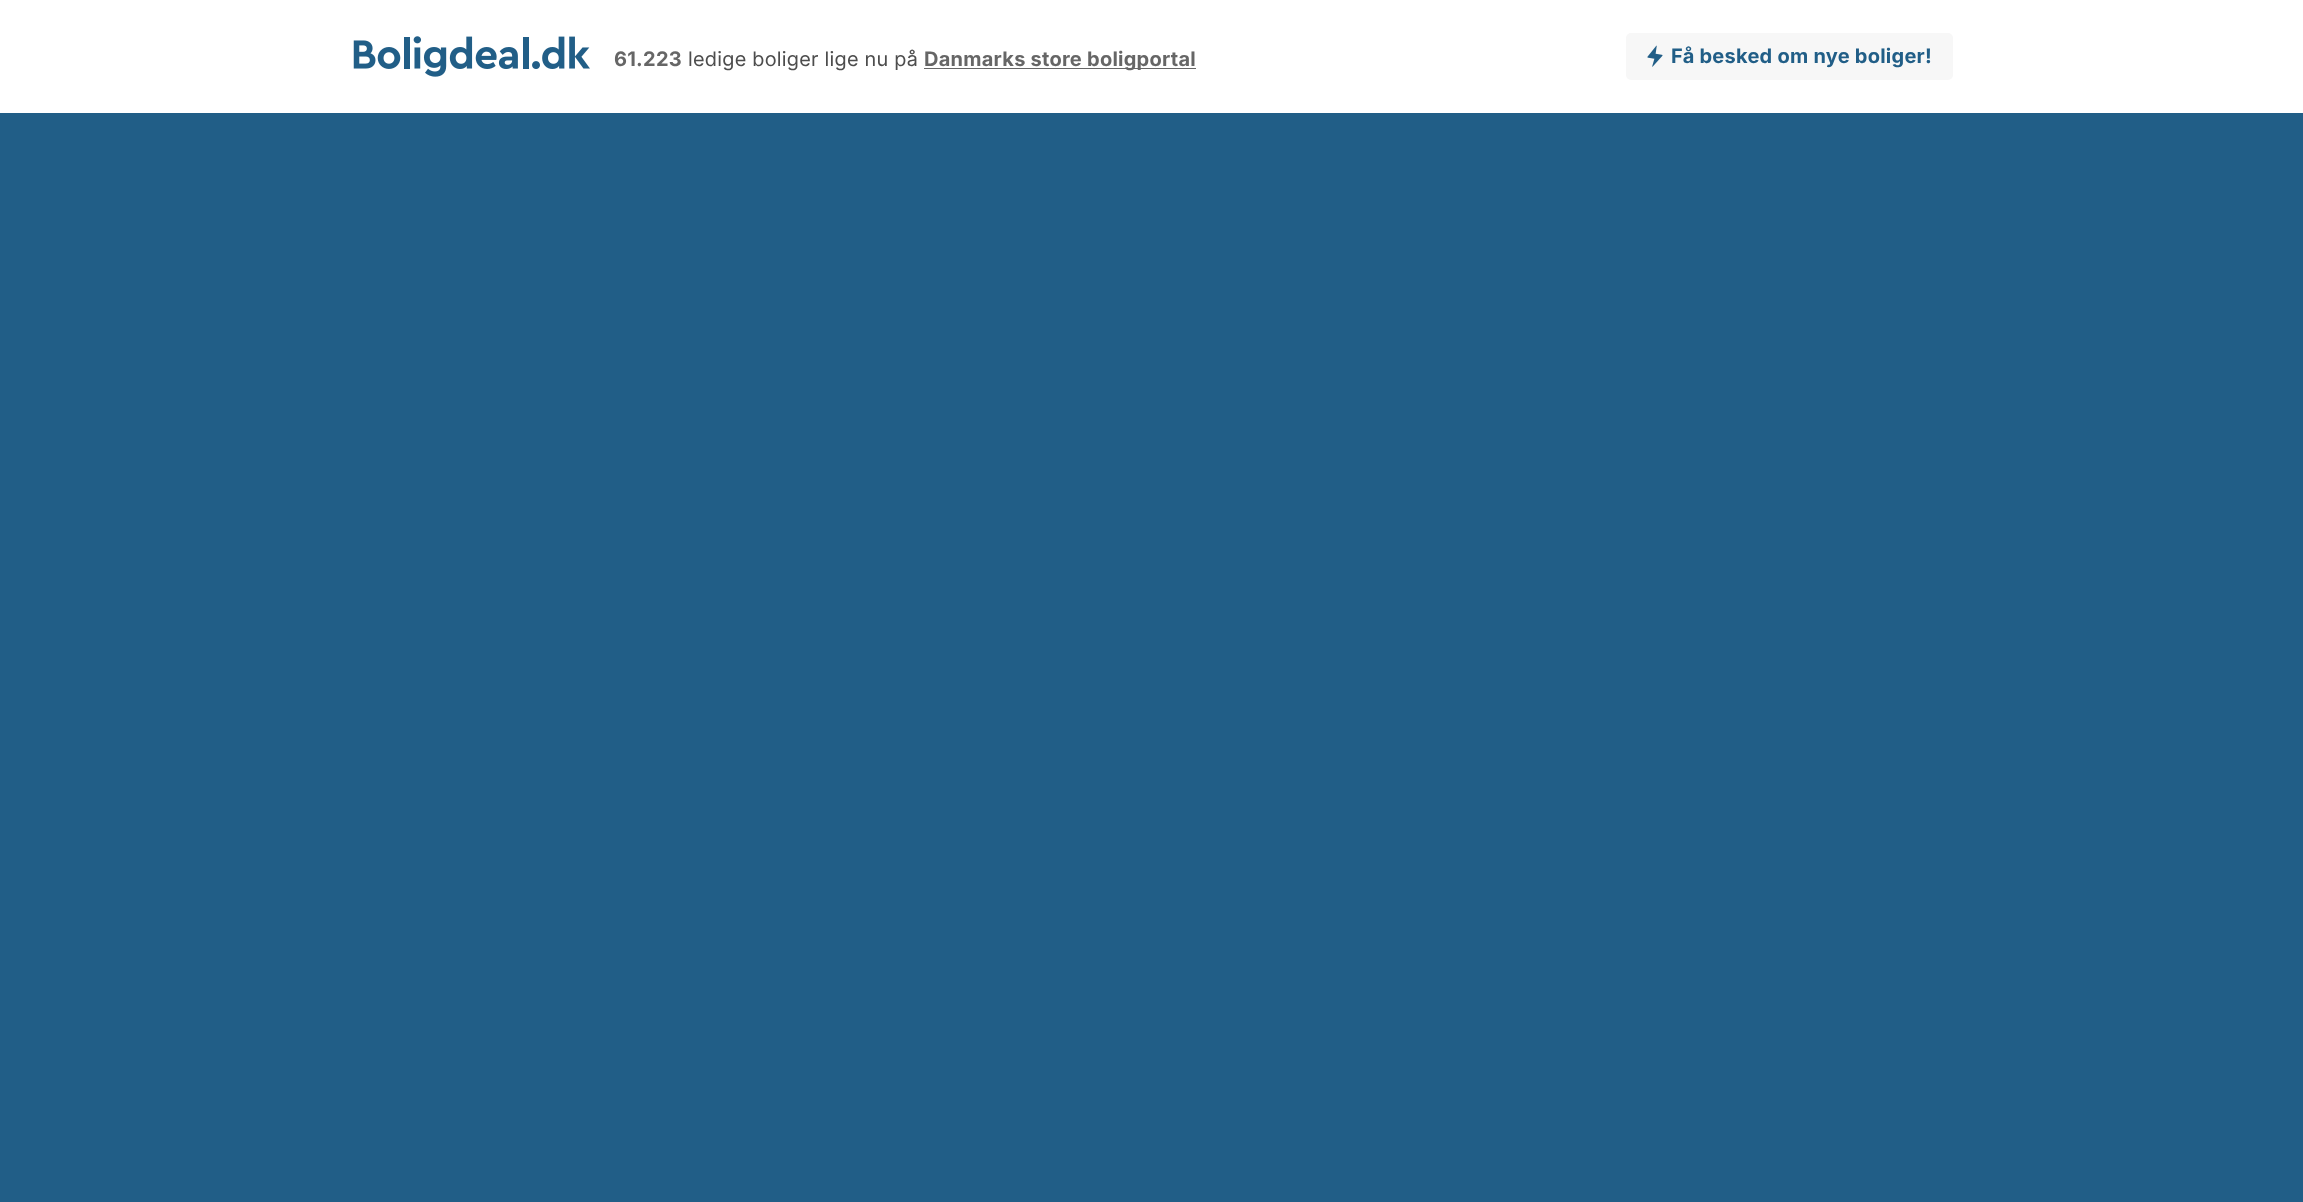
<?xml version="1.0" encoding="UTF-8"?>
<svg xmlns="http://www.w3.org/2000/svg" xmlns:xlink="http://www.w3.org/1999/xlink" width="2303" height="1202">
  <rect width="100%" height="100%" fill="#ffffff" />
  <image x="353" y="36" width="237" height="41" xlink:href="image1.png" />
  <rect x="924" y="68" width="272" height="1" fill="#666666" />
  <rect x="1626" y="33" width="327" height="47" rx="5" fill="#f7f7f7" />
  <image x="1647" y="45" width="16" height="22" xlink:href="image2.png" />
  <rect y="113" width="2303" height="1089" fill="#215e87" />
  <text x="614" y="66" style="font-family: Inter; font-size: 20px; font-weight: bold; letter-spacing: 0.25px; fill: #666666">61.223</text>
  <text x="688" y="66" style="font-family: Inter; font-size: 20px; letter-spacing: 0.25px; fill: #4d4d4d">ledige boliger lige nu på</text>
  <text x="924" y="66" style="font-family: Inter; font-size: 20px; font-weight: bold; letter-spacing: 0.25px; fill: #666666">Danmarks store boligportal</text>
  <text x="1671" y="63" style="font-family: Inter; font-size: 20px; font-weight: bold; letter-spacing: 0.25px; fill: #215e87">Få besked om nye boliger!</text>
</svg>
